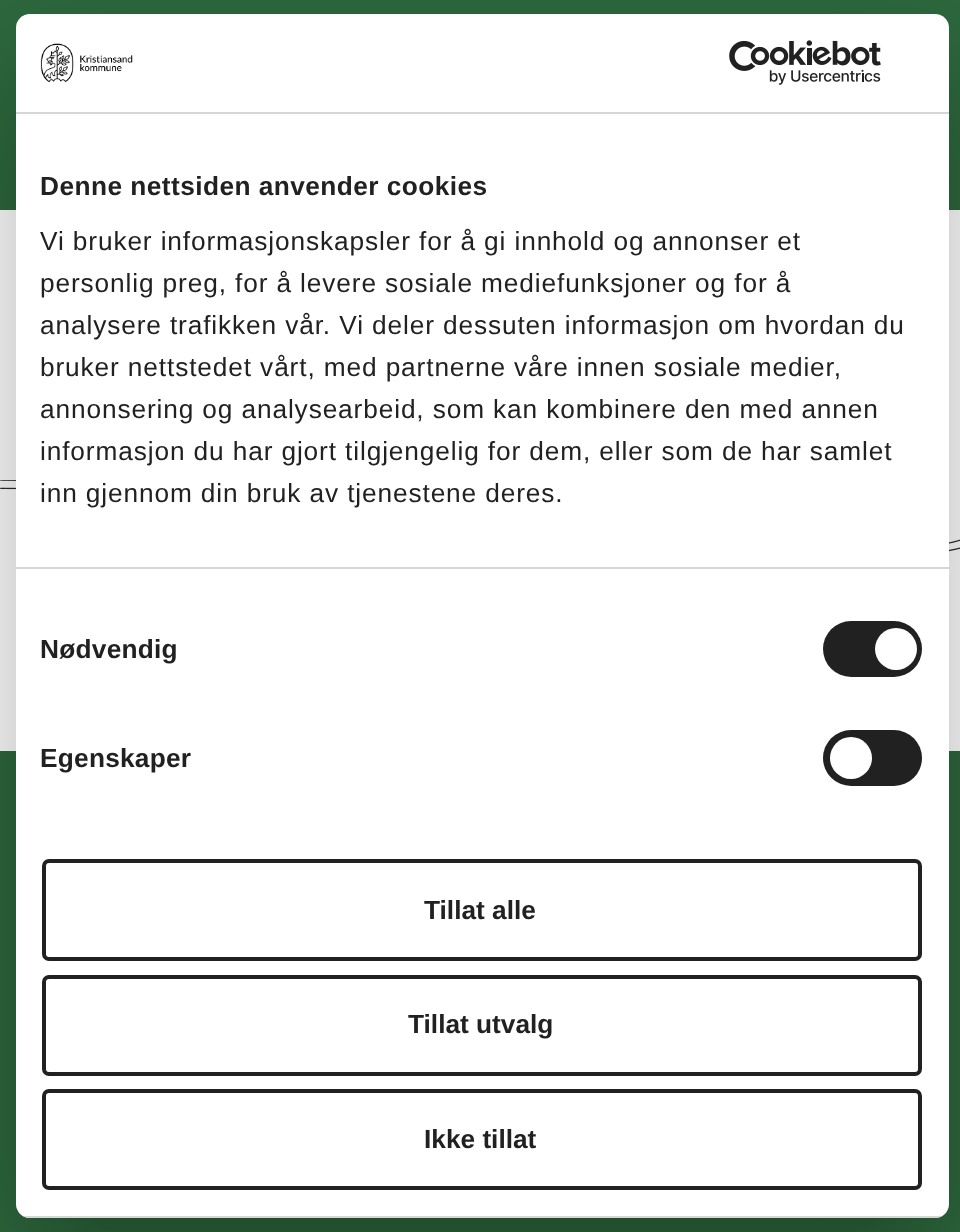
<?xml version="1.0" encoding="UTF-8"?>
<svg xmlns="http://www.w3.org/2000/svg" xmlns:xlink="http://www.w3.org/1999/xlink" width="960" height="1232">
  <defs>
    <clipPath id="clip1"><rect x="16" y="14" width="933" height="1204" rx="14" /></clipPath>
  </defs>
  <rect width="100%" height="100%" fill="#ffffff" />
  <rect width="960" height="210" fill="#2d683d" />
  <image x="0" y="480" width="960" height="72" xlink:href="image3.png" />
  <rect y="751" width="960" height="481" fill="#2d683d" />
  <rect x="16" y="70" width="933" height="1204" rx="14" fill="#000000" fill-opacity="0.3" filter="blur(59.5px)" />
  <rect x="16" y="14" width="933" height="1204" rx="14" fill="#ffffff" />
  <rect x="16" y="112" width="933" height="2" fill="#d6d6d6" />
  <image x="40" y="43" width="93" height="40" xlink:href="image1.png" />
  <image x="729" y="40" width="152" height="45" xlink:href="image2.png" />
  <rect x="16" y="567" width="933" height="2" fill="#d6d6d6" />
  <rect x="823" y="621" width="99" height="56" rx="28" fill="#212121" />
  <circle cx="896" cy="649" r="21" fill="#ffffff" />
  <rect x="823" y="730" width="99" height="56" rx="28" fill="#212121" />
  <circle cx="851" cy="758" r="21" fill="#ffffff" />
  <g clip-path="url(#clip1)">
    <rect x="16" y="1216" width="933" height="2" fill="#d6d6d6" />
  </g>
  <rect x="44" y="861" width="876" height="98" rx="5" fill="none" stroke="#212121" stroke-width="4" />
  <rect x="44" y="977" width="876" height="97" rx="5" fill="none" stroke="#212121" stroke-width="4" />
  <rect x="44" y="1091" width="876" height="97" rx="5" fill="none" stroke="#212121" stroke-width="4" />
  <text x="40" y="195" style="font-family: Liberation Sans; font-size: 26.25px; font-weight: bold; letter-spacing: 0.45px; fill: #212121">Denne nettsiden anvender cookies</text>
  <text x="40" y="250" style="font-family: Liberation Sans; font-size: 26.25px; letter-spacing: 0.88px; fill: #212121">Vi bruker informasjonskapsler for å gi innhold og annonser et</text>
  <text x="40" y="292" style="font-family: Liberation Sans; font-size: 26.25px; letter-spacing: 0.88px; fill: #212121">personlig preg, for å levere sosiale mediefunksjoner og for å</text>
  <text x="40" y="334" style="font-family: Liberation Sans; font-size: 26.25px; letter-spacing: 0.88px; fill: #212121">analysere trafikken vår. Vi deler dessuten informasjon om hvordan du</text>
  <text x="40" y="376" style="font-family: Liberation Sans; font-size: 26.25px; letter-spacing: 0.88px; fill: #212121">bruker nettstedet vårt, med partnerne våre innen sosiale medier,</text>
  <text x="40" y="418" style="font-family: Liberation Sans; font-size: 26.25px; letter-spacing: 0.88px; fill: #212121">annonsering og analysearbeid, som kan kombinere den med annen</text>
  <text x="40" y="460" style="font-family: Liberation Sans; font-size: 26.25px; letter-spacing: 0.88px; fill: #212121">informasjon du har gjort tilgjengelig for dem, eller som de har samlet</text>
  <text x="40" y="502" style="font-family: Liberation Sans; font-size: 26.25px; letter-spacing: 0.88px; fill: #212121">inn gjennom din bruk av tjenestene deres.</text>
  <text x="40" y="658" style="font-family: Liberation Sans; font-size: 26.25px; font-weight: bold; letter-spacing: 0.25px; fill: #212121">Nødvendig</text>
  <text x="40" y="767" style="font-family: Liberation Sans; font-size: 26.25px; font-weight: bold; letter-spacing: 0.25px; fill: #212121">Egenskaper</text>
  <text x="424" y="919" style="font-family: Liberation Sans; font-size: 26.25px; font-weight: bold; fill: #212121">Tillat alle</text>
  <text x="408" y="1033" style="font-family: Liberation Sans; font-size: 26.25px; font-weight: bold; fill: #212121">Tillat utvalg</text>
  <text x="424" y="1148" style="font-family: Liberation Sans; font-size: 26.25px; font-weight: bold; fill: #212121">Ikke tillat</text>
</svg>
